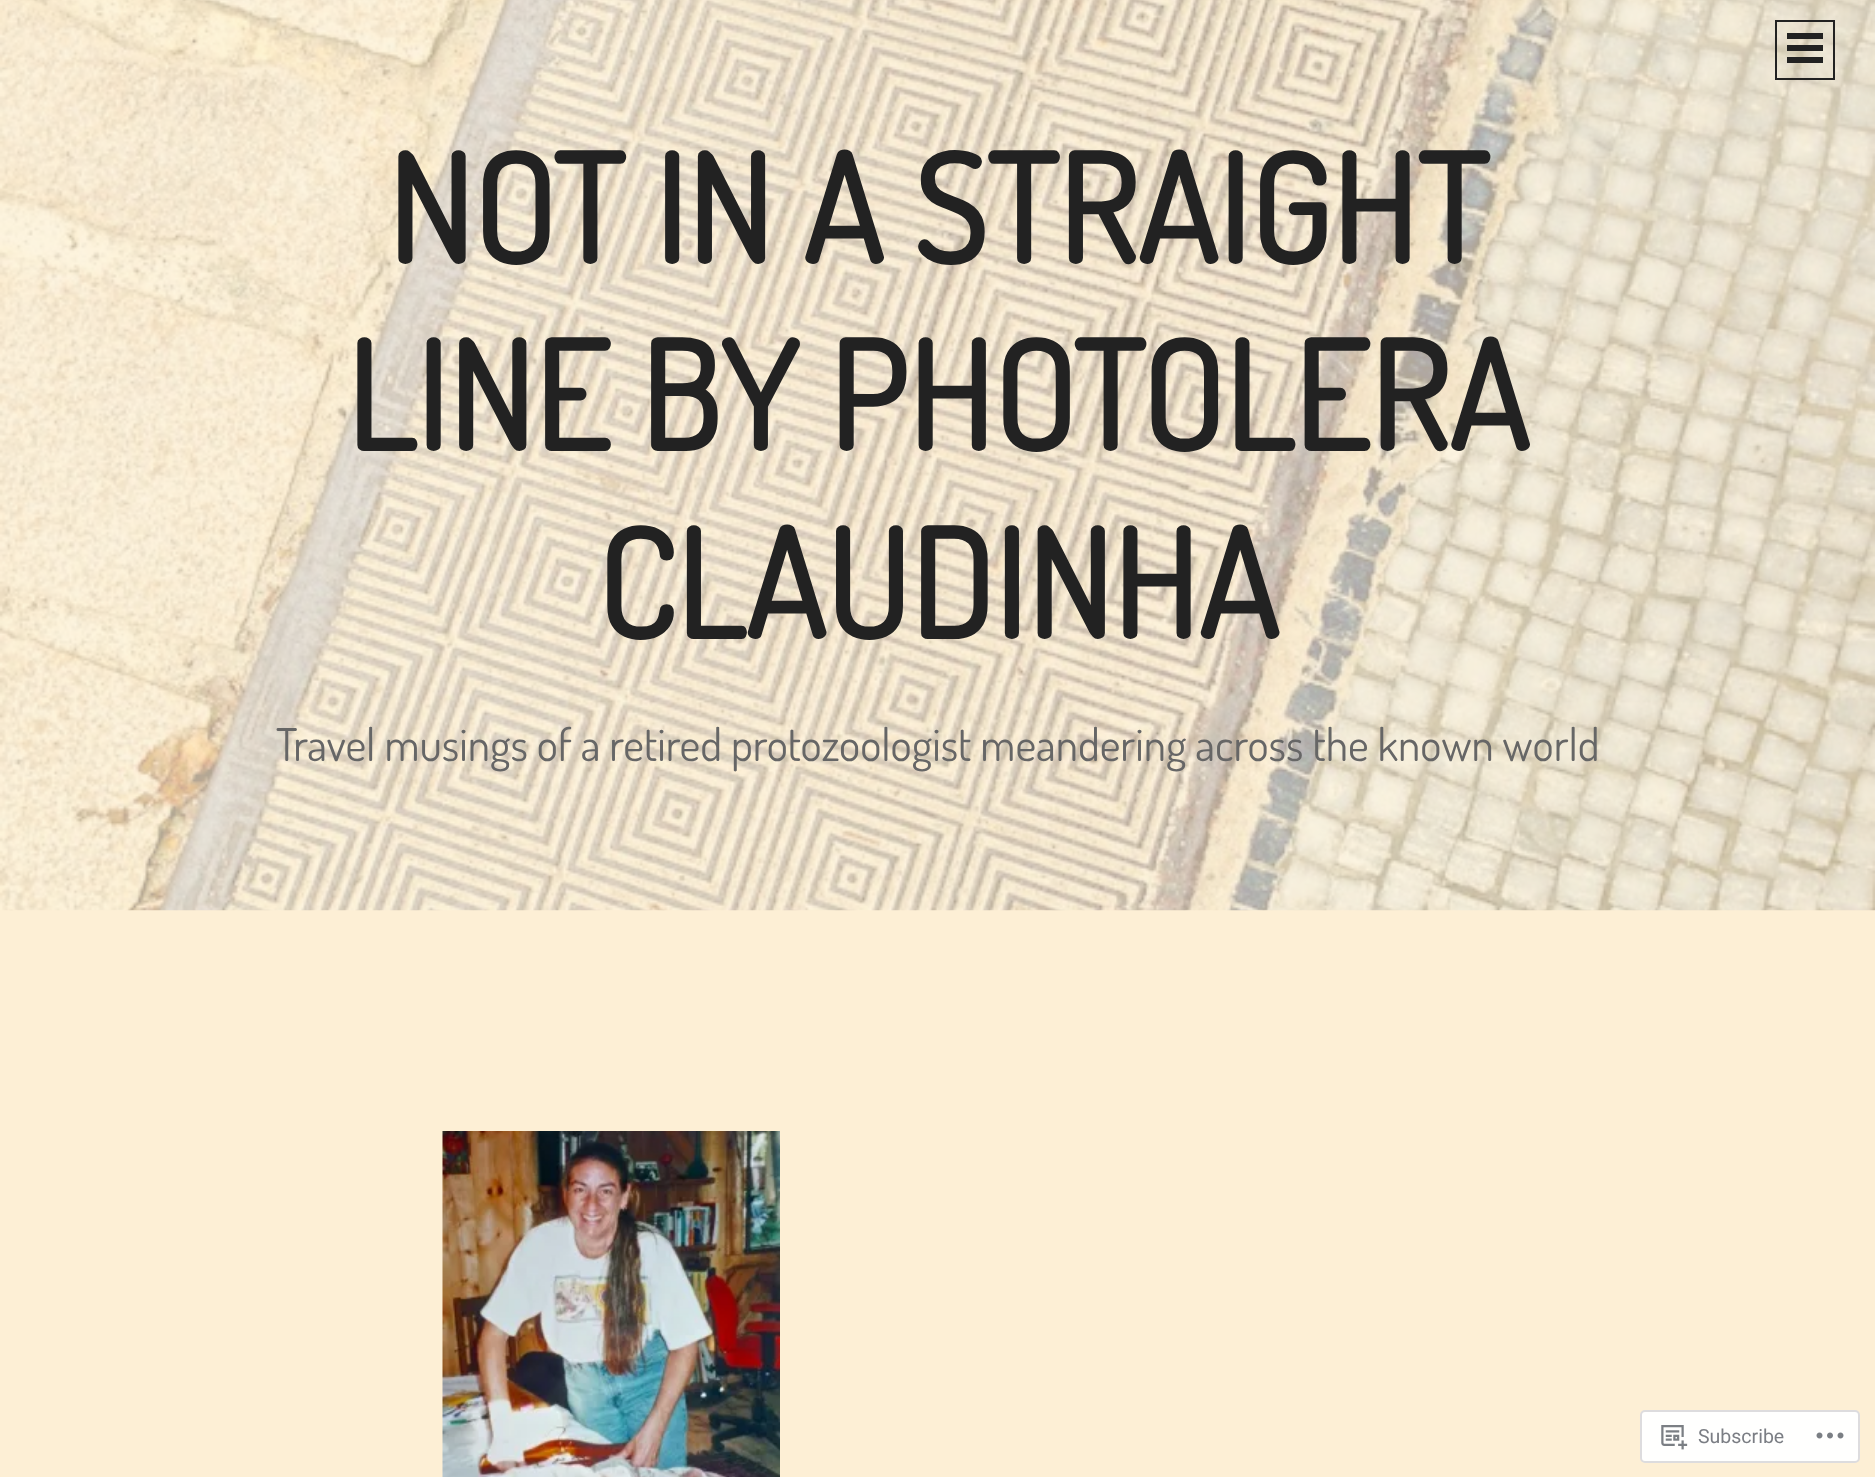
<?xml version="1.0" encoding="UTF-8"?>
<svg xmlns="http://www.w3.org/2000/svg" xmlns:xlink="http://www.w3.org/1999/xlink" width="1875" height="1477">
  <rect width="100%" height="100%" fill="#fdefd5" />
  <image x="0" y="0" width="1875" height="911" xlink:href="image1.png" />
  <rect x="1776" y="21" width="58" height="58" fill="none" stroke="#222222" stroke-width="2" />
  <rect x="1787" y="45" width="36" height="6" fill="#222222" />
  <rect x="1787" y="33" width="36" height="6" fill="#222222" />
  <rect x="1787" y="57" width="36" height="6" fill="#222222" />
  <image x="442" y="1131" width="338" height="346" xlink:href="image2.png" />
  <rect x="1641" y="1411" width="218" height="51" rx="4" fill="#fffffe" stroke="#dddcde" stroke-width="2" />
  <image x="1661" y="1425" width="27" height="25" xlink:href="image3.png" />
  <image x="1816" y="1432" width="28" height="7" xlink:href="image4.png" />
  <text x="387" y="264" style="font-family: Dosis; font-size: 149.75px; font-weight: bold; fill: #222222">NOT IN A STRAIGHT</text>
  <text x="346" y="451" style="font-family: Dosis; font-size: 149.75px; font-weight: bold; fill: #222222">LINE BY PHOTOLERA</text>
  <text x="597" y="639" style="font-family: Dosis; font-size: 149.75px; font-weight: bold; fill: #222222">CLAUDINHA</text>
  <text x="276" y="761" style="font-family: Dosis; font-size: 45px; fill: #666666">Travel musings of a retired protozoologist meandering across the known world</text>
  <text x="1698" y="1443" style="font-family: Roboto; font-size: 19.5px; fill: #7b7e84">Subscribe</text>
</svg>
